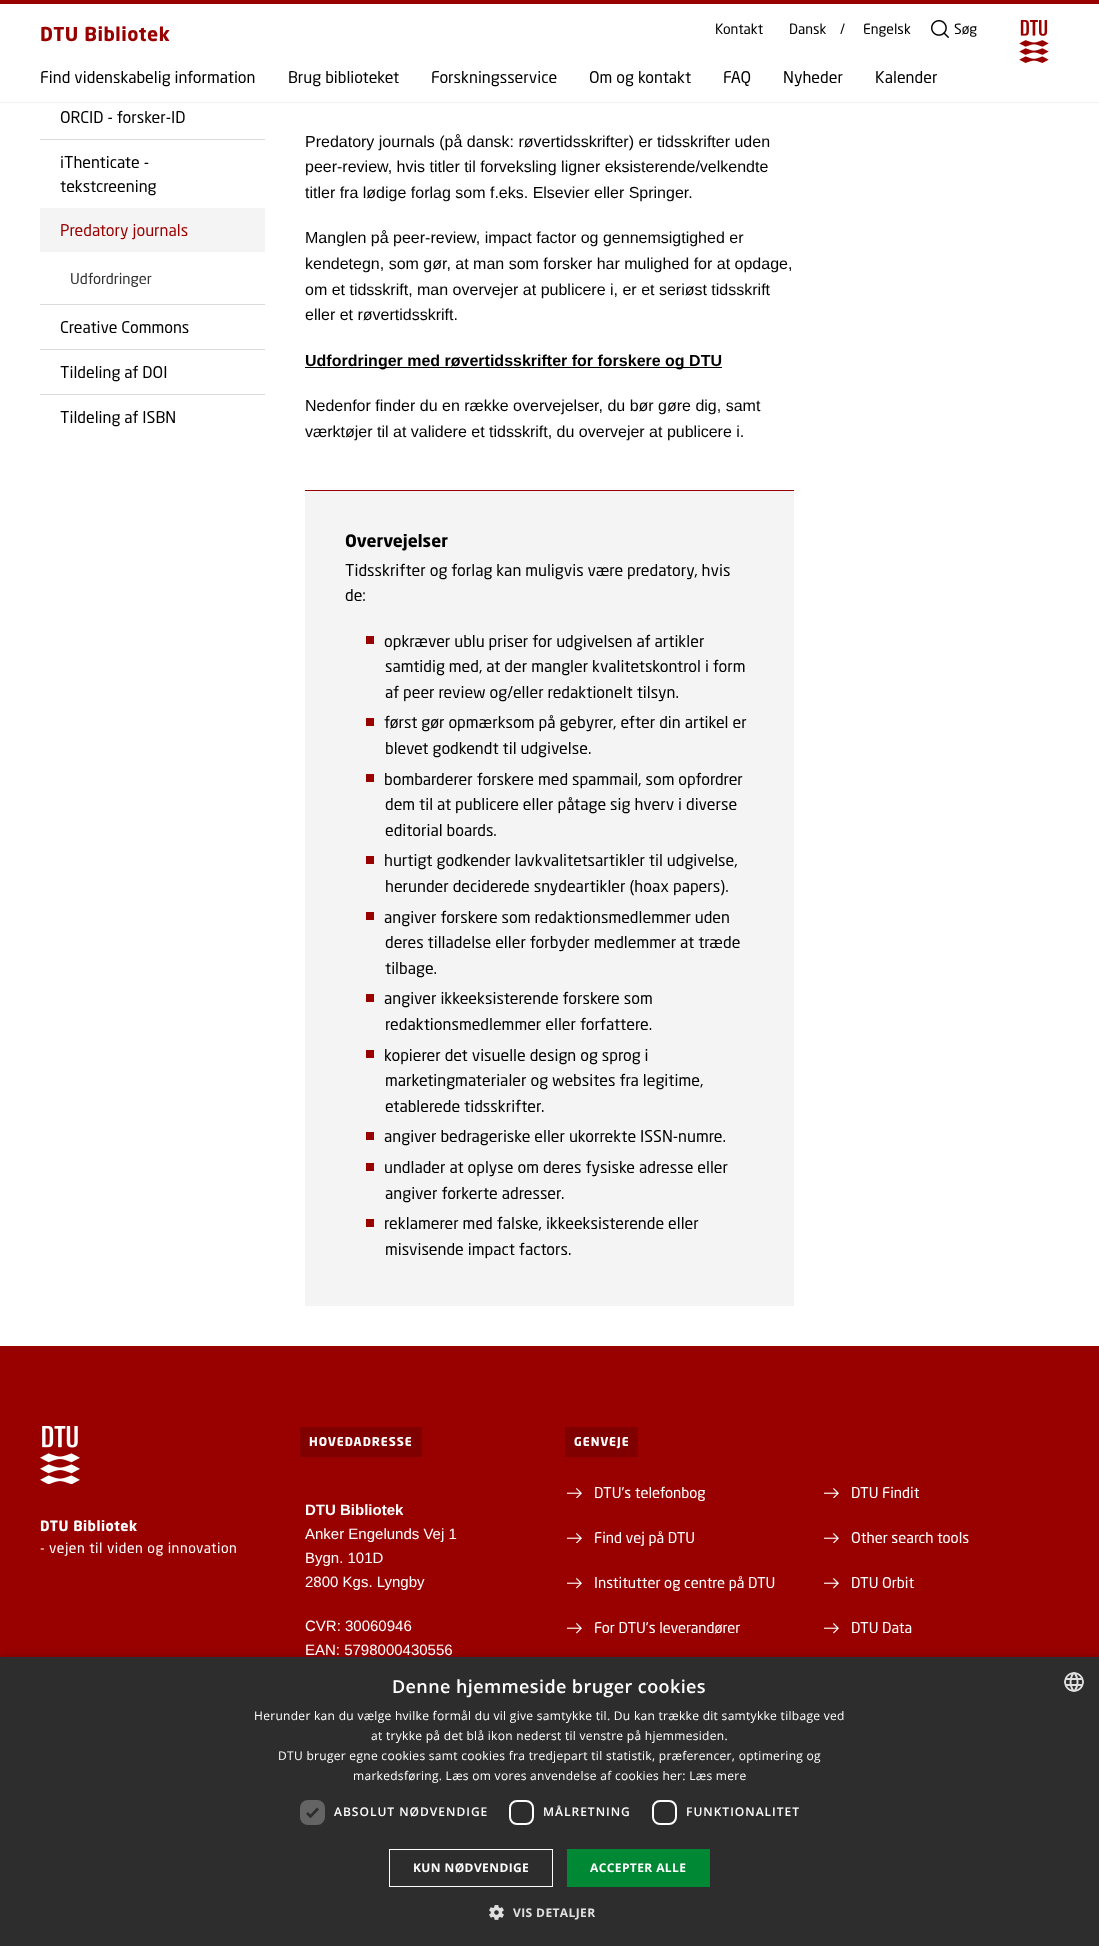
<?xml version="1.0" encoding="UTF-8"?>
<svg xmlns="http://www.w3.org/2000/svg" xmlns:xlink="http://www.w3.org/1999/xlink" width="1099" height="1946">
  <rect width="100%" height="100%" fill="#ffffff" />
  <rect width="1099" height="4" fill="#990000" />
  <rect y="102" width="1099" height="1" fill="#f1f1f1" />
  <image x="931" y="20" width="18" height="18" xlink:href="image1.png" />
  <image x="1019" y="20" width="30" height="43" xlink:href="image2.png" />
  <rect x="40" y="139" width="225" height="1" fill="#dadada" />
  <rect x="40" y="208" width="225" height="44" fill="#f4f4f4" />
  <rect x="40" y="304" width="225" height="1" fill="#dadada" />
  <rect x="40" y="349" width="225" height="1" fill="#dadada" />
  <rect x="40" y="394" width="225" height="1" fill="#dadada" />
  <rect x="305" y="367" width="417" height="1" fill="#000000" />
  <rect x="305" y="491" width="489" height="815" fill="#f4f4f4" />
  <rect x="305" y="490" width="489" height="1" fill="#990000" />
  <rect x="366" y="636" width="8" height="8" fill="#990000" />
  <rect x="366" y="718" width="8" height="8" fill="#990000" />
  <rect x="366" y="774" width="8" height="8" fill="#990000" />
  <rect x="366" y="856" width="8" height="8" fill="#990000" />
  <rect x="366" y="912" width="8" height="8" fill="#990000" />
  <rect x="366" y="994" width="8" height="8" fill="#990000" />
  <rect x="366" y="1050" width="8" height="8" fill="#990000" />
  <rect x="366" y="1132" width="8" height="8" fill="#990000" />
  <rect x="366" y="1163" width="8" height="8" fill="#990000" />
  <rect x="366" y="1219" width="8" height="8" fill="#990000" />
  <rect y="1346" width="1099" height="311" fill="#990000" />
  <image x="40" y="1426" width="40" height="58" xlink:href="image3.png" />
  <rect x="300" y="1427" width="122" height="30" fill="#800000" />
  <rect x="565" y="1427" width="73" height="30" fill="#800000" />
  <image x="567" y="1488" width="15" height="10" xlink:href="image4.png" />
  <image x="824" y="1488" width="15" height="10" xlink:href="image4.png" />
  <image x="567" y="1533" width="15" height="10" xlink:href="image4.png" />
  <image x="824" y="1533" width="15" height="10" xlink:href="image4.png" />
  <image x="567" y="1578" width="15" height="11" xlink:href="image5.png" />
  <image x="824" y="1578" width="15" height="11" xlink:href="image5.png" />
  <image x="567" y="1623" width="15" height="11" xlink:href="image5.png" />
  <image x="824" y="1623" width="15" height="11" xlink:href="image5.png" />
  <rect x="1" y="1659" width="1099" height="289" fill="#000000" fill-opacity="0.35" filter="blur(4px)" />
  <rect y="1657" width="1099" height="289" fill="#2d2d2d" />
  <image x="1064" y="1672" width="20" height="20" xlink:href="image6.png" />
  <rect x="300" y="1800" width="25" height="25" rx="8" fill="#646464" />
  <path d="M 307 1813 l 3.5 3.5 l 7.5 -8" fill="none" stroke="#2d2d2d" stroke-width="2.6" />
  <rect x="510" y="1801" width="23" height="23" rx="7" fill="none" stroke="#ffffff" stroke-width="2" />
  <rect x="653" y="1801" width="23" height="23" rx="7" fill="none" stroke="#ffffff" stroke-width="2" />
  <rect x="389.5" y="1849.5" width="163" height="37" fill="none" stroke="#ffffff" />
  <rect x="567" y="1849" width="143" height="38" fill="#008835" />
  <image x="489" y="1905" width="15" height="15" xlink:href="image7.png" />
  <text x="40" y="41" style="font-family: 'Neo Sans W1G'; font-size: 19px; font-weight: bold; letter-spacing: 0.5px; fill: #990000">DTU Bibliotek</text>
  <text x="715" y="34" style="font-family: 'Neo Sans W1G'; font-size: 14px; fill: #000000">Kontakt</text>
  <text x="789" y="34" style="font-family: 'Neo Sans W1G'; font-size: 14px; fill: #000000">Dansk</text>
  <text x="840" y="34" style="font-family: 'Neo Sans W1G'; font-size: 14px; fill: #000000">/</text>
  <text x="863" y="34" style="font-family: 'Neo Sans W1G'; font-size: 14px; fill: #000000">Engelsk</text>
  <text x="954" y="34" style="font-family: 'Neo Sans W1G'; font-size: 14px; fill: #000000">Søg</text>
  <text x="40" y="83" style="font-family: 'Neo Sans W1G'; font-size: 16px; fill: #000000">Find videnskabelig information</text>
  <text x="288" y="83" style="font-family: 'Neo Sans W1G'; font-size: 16px; fill: #000000">Brug biblioteket</text>
  <text x="431" y="83" style="font-family: 'Neo Sans W1G'; font-size: 16px; fill: #000000">Forskningsservice</text>
  <text x="589" y="83" style="font-family: 'Neo Sans W1G'; font-size: 16px; fill: #000000">Om og kontakt</text>
  <text x="723" y="83" style="font-family: 'Neo Sans W1G'; font-size: 16px; fill: #000000">FAQ</text>
  <text x="783" y="83" style="font-family: 'Neo Sans W1G'; font-size: 16px; fill: #000000">Nyheder</text>
  <text x="875" y="83" style="font-family: 'Neo Sans W1G'; font-size: 16px; fill: #000000">Kalender</text>
  <text x="60" y="123" style="font-family: 'Neo Sans W1G'; font-size: 16px; fill: #000000">ORCID - forsker-ID</text>
  <text x="60" y="168" style="font-family: 'Neo Sans W1G'; font-size: 16px; fill: #000000">iThenticate -</text>
  <text x="60" y="192" style="font-family: 'Neo Sans W1G'; font-size: 16px; fill: #000000">tekstcreening</text>
  <text x="60" y="236" style="font-family: 'Neo Sans W1G'; font-size: 16px; fill: #990000">Predatory journals</text>
  <text x="70" y="284" style="font-family: 'Neo Sans W1G'; font-size: 14.75px; fill: #333333">Udfordringer</text>
  <text x="60" y="333" style="font-family: 'Neo Sans W1G'; font-size: 16px; fill: #000000">Creative Commons</text>
  <text x="60" y="378" style="font-family: 'Neo Sans W1G'; font-size: 16px; fill: #000000">Tildeling af DOI</text>
  <text x="60" y="423" style="font-family: 'Neo Sans W1G'; font-size: 16px; fill: #000000">Tildeling af ISBN</text>
  <text x="305" y="147" style="font-family: Liberation Sans; font-size: 16px; fill: #000000">Predatory journals (på dansk: røvertidsskrifter) er tidsskrifter uden</text>
  <text x="305" y="172" style="font-family: Liberation Sans; font-size: 16px; fill: #000000">peer-review, hvis titler til forveksling ligner eksisterende/velkendte</text>
  <text x="305" y="198" style="font-family: Liberation Sans; font-size: 16px; fill: #000000">titler fra lødige forlag som f.eks. Elsevier eller Springer.</text>
  <text x="305" y="243" style="font-family: Liberation Sans; font-size: 16px; fill: #000000">Manglen på peer-review, impact factor og gennemsigtighed er</text>
  <text x="305" y="269" style="font-family: Liberation Sans; font-size: 16px; fill: #000000">kendetegn, som gør, at man som forsker har mulighed for at opdage,</text>
  <text x="305" y="295" style="font-family: Liberation Sans; font-size: 16px; fill: #000000">om et tidsskrift, man overvejer at publicere i, er et seriøst tidsskrift</text>
  <text x="305" y="320" style="font-family: Liberation Sans; font-size: 16px; fill: #000000">eller et røvertidsskrift.</text>
  <text x="305" y="366" style="font-family: Liberation Sans; font-size: 16px; font-weight: bold; fill: #000000">Udfordringer med røvertidsskrifter for forskere og DTU</text>
  <text x="305" y="411" style="font-family: Liberation Sans; font-size: 16px; fill: #000000">Nedenfor finder du en række overvejelser, du bør gøre dig, samt</text>
  <text x="305" y="437" style="font-family: Liberation Sans; font-size: 16px; fill: #000000">værktøjer til at validere et tidsskrift, du overvejer at publicere i.</text>
  <text x="345" y="547" style="font-family: 'Neo Sans W1G'; font-size: 17px; font-weight: bold; fill: #000000">Overvejelser</text>
  <text x="345" y="576" style="font-family: 'Neo Sans W1G'; font-size: 16px; fill: #000000">Tidsskrifter og forlag kan muligvis være predatory, hvis</text>
  <text x="345" y="601" style="font-family: 'Neo Sans W1G'; font-size: 16px; fill: #000000">de:</text>
  <text x="384" y="647" style="font-family: 'Neo Sans W1G'; font-size: 16px; fill: #000000">opkræver ublu priser for udgivelsen af artikler</text>
  <text x="385" y="672" style="font-family: 'Neo Sans W1G'; font-size: 16px; fill: #000000">samtidig med, at der mangler kvalitetskontrol i form</text>
  <text x="385" y="698" style="font-family: 'Neo Sans W1G'; font-size: 16px; fill: #000000">af peer review og/eller redaktionelt tilsyn.</text>
  <text x="384" y="728" style="font-family: 'Neo Sans W1G'; font-size: 16px; fill: #000000">først gør opmærksom på gebyrer, efter din artikel er</text>
  <text x="385" y="754" style="font-family: 'Neo Sans W1G'; font-size: 16px; fill: #000000">blevet godkendt til udgivelse.</text>
  <text x="384" y="785" style="font-family: 'Neo Sans W1G'; font-size: 16px; fill: #000000">bombarderer forskere med spammail, som opfordrer</text>
  <text x="385" y="810" style="font-family: 'Neo Sans W1G'; font-size: 16px; fill: #000000">dem til at publicere eller påtage sig hverv i diverse</text>
  <text x="385" y="836" style="font-family: 'Neo Sans W1G'; font-size: 16px; fill: #000000">editorial boards.</text>
  <text x="384" y="866" style="font-family: 'Neo Sans W1G'; font-size: 16px; fill: #000000">hurtigt godkender lavkvalitetsartikler til udgivelse,</text>
  <text x="385" y="892" style="font-family: 'Neo Sans W1G'; font-size: 16px; fill: #000000">herunder deciderede snydeartikler (hoax papers).</text>
  <text x="384" y="923" style="font-family: 'Neo Sans W1G'; font-size: 16px; fill: #000000">angiver forskere som redaktionsmedlemmer uden</text>
  <text x="385" y="948" style="font-family: 'Neo Sans W1G'; font-size: 16px; fill: #000000">deres tilladelse eller forbyder medlemmer at træde</text>
  <text x="385" y="974" style="font-family: 'Neo Sans W1G'; font-size: 16px; fill: #000000">tilbage.</text>
  <text x="384" y="1004" style="font-family: 'Neo Sans W1G'; font-size: 16px; fill: #000000">angiver ikkeeksisterende forskere som</text>
  <text x="385" y="1030" style="font-family: 'Neo Sans W1G'; font-size: 16px; fill: #000000">redaktionsmedlemmer eller forfattere.</text>
  <text x="384" y="1061" style="font-family: 'Neo Sans W1G'; font-size: 16px; fill: #000000">kopierer det visuelle design og sprog i</text>
  <text x="385" y="1086" style="font-family: 'Neo Sans W1G'; font-size: 16px; fill: #000000">marketingmaterialer og websites fra legitime,</text>
  <text x="385" y="1112" style="font-family: 'Neo Sans W1G'; font-size: 16px; fill: #000000">etablerede tidsskrifter.</text>
  <text x="384" y="1142" style="font-family: 'Neo Sans W1G'; font-size: 16px; fill: #000000">angiver bedrageriske eller ukorrekte ISSN-numre.</text>
  <text x="384" y="1173" style="font-family: 'Neo Sans W1G'; font-size: 16px; fill: #000000">undlader at oplyse om deres fysiske adresse eller</text>
  <text x="385" y="1199" style="font-family: 'Neo Sans W1G'; font-size: 16px; fill: #000000">angiver forkerte adresser.</text>
  <text x="384" y="1229" style="font-family: 'Neo Sans W1G'; font-size: 16px; fill: #000000">reklamerer med falske, ikkeeksisterende eller</text>
  <text x="385" y="1255" style="font-family: 'Neo Sans W1G'; font-size: 16px; fill: #000000">misvisende impact factors.</text>
  <text x="40" y="1531" style="font-family: 'Neo Sans W1G'; font-size: 14px; font-weight: bold; letter-spacing: 0.5px; fill: #ffffff">DTU Bibliotek</text>
  <text x="40" y="1553" style="font-family: 'Neo Sans W1G'; font-size: 14px; letter-spacing: 0.5px; fill: #ffffff">- vejen til viden og innovation</text>
  <text x="309" y="1446" style="font-family: 'Neo Sans W1G'; font-size: 12px; font-weight: bold; letter-spacing: 1px; fill: #ffffff">HOVEDADRESSE</text>
  <text x="305" y="1515" style="font-family: Liberation Sans; font-size: 15px; font-weight: bold; fill: #ffffff">DTU Bibliotek</text>
  <text x="305" y="1539" style="font-family: Liberation Sans; font-size: 15px; fill: #ffffff">Anker Engelunds Vej 1</text>
  <text x="305" y="1563" style="font-family: Liberation Sans; font-size: 15px; fill: #ffffff">Bygn. 101D</text>
  <text x="305" y="1587" style="font-family: Liberation Sans; font-size: 15px; fill: #ffffff">2800 Kgs. Lyngby</text>
  <text x="305" y="1631" style="font-family: Liberation Sans; font-size: 15px; fill: #ffffff">CVR: 30060946</text>
  <text x="305" y="1655" style="font-family: Liberation Sans; font-size: 15px; fill: #ffffff">EAN: 5798000430556</text>
  <text x="574" y="1446" style="font-family: 'Neo Sans W1G'; font-size: 12px; font-weight: bold; letter-spacing: 1px; fill: #ffffff">GENVEJE</text>
  <text x="594" y="1498" style="font-family: 'Neo Sans W1G'; font-size: 14.75px; fill: #ffffff">DTU's telefonbog</text>
  <text x="851" y="1498" style="font-family: 'Neo Sans W1G'; font-size: 14.75px; fill: #ffffff">DTU Findit</text>
  <text x="594" y="1543" style="font-family: 'Neo Sans W1G'; font-size: 14.75px; fill: #ffffff">Find vej på DTU</text>
  <text x="851" y="1543" style="font-family: 'Neo Sans W1G'; font-size: 14.75px; fill: #ffffff">Other search tools</text>
  <text x="594" y="1588" style="font-family: 'Neo Sans W1G'; font-size: 14.75px; fill: #ffffff">Institutter og centre på DTU</text>
  <text x="851" y="1588" style="font-family: 'Neo Sans W1G'; font-size: 14.75px; fill: #ffffff">DTU Orbit</text>
  <text x="594" y="1633" style="font-family: 'Neo Sans W1G'; font-size: 14.75px; fill: #ffffff">For DTU's leverandører</text>
  <text x="851" y="1633" style="font-family: 'Neo Sans W1G'; font-size: 14.75px; fill: #ffffff">DTU Data</text>
  <text x="392" y="1693" style="font-family: Open Sans; font-size: 18px; font-weight: 600; letter-spacing: 0.4px; fill: #ffffff">Denne hjemmeside bruger cookies</text>
  <text x="254" y="1720" style="font-family: Open Sans; font-size: 12px; letter-spacing: 0.3px; fill: #ffffff">Herunder kan du vælge hvilke formål du vil give samtykke til. Du kan trække dit samtykke tilbage ved</text>
  <text x="371" y="1740" style="font-family: Open Sans; font-size: 12px; letter-spacing: 0.3px; fill: #ffffff">at trykke på det blå ikon nederst til venstre på hjemmesiden.</text>
  <text x="278" y="1760" style="font-family: Open Sans; font-size: 12px; letter-spacing: 0.3px; fill: #ffffff">DTU bruger egne cookies samt cookies fra tredjepart til statistik, præferencer, optimering og</text>
  <text x="353" y="1780" style="font-family: Open Sans; font-size: 12px; letter-spacing: 0.3px; fill: #ffffff">markedsføring. Læs om vores anvendelse af cookies her: Læs mere</text>
  <text x="334" y="1816" style="font-family: Open Sans; font-size: 12px; font-weight: 600; letter-spacing: 1px; fill: #ffffff">ABSOLUT NØDVENDIGE</text>
  <text x="543" y="1816" style="font-family: Open Sans; font-size: 12px; font-weight: 600; letter-spacing: 1px; fill: #ffffff">MÅLRETNING</text>
  <text x="686" y="1816" style="font-family: Open Sans; font-size: 12px; font-weight: 600; letter-spacing: 1px; fill: #ffffff">FUNKTIONALITET</text>
  <text x="413" y="1872" style="font-family: Open Sans; font-size: 12px; font-weight: bold; letter-spacing: 0.4px; fill: #ffffff">KUN NØDVENDIGE</text>
  <text x="590" y="1872" style="font-family: Open Sans; font-size: 12px; font-weight: bold; letter-spacing: 0.4px; fill: #ffffff">ACCEPTER ALLE</text>
  <text x="513" y="1917" style="font-family: Open Sans; font-size: 12px; font-weight: bold; letter-spacing: 0.4px; fill: #e0e0e0">VIS DETALJER</text>
</svg>
